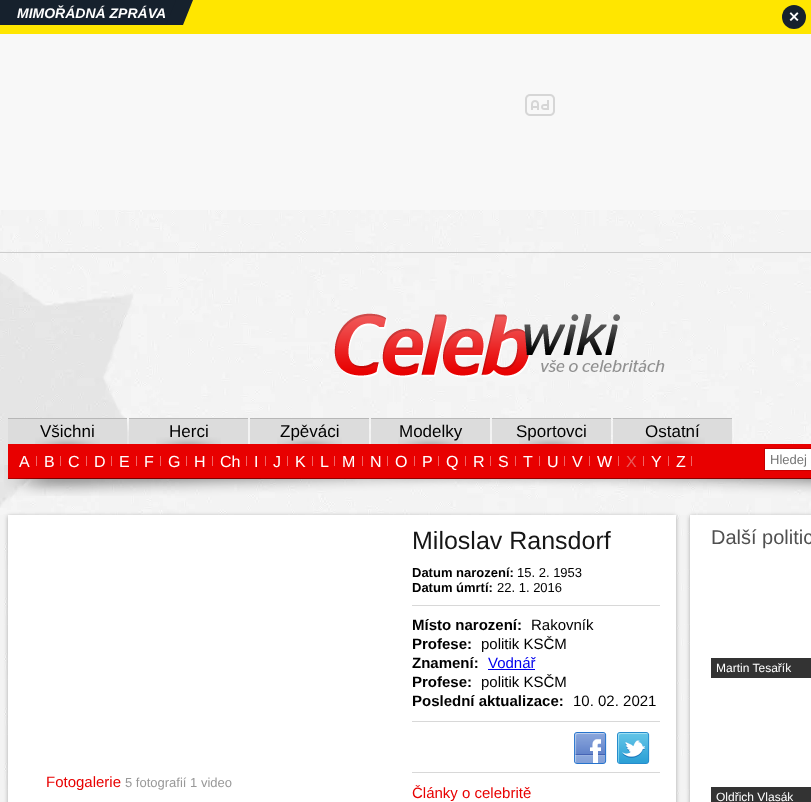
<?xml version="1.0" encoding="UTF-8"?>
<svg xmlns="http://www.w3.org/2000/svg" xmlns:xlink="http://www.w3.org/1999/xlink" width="811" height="802">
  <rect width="100%" height="100%" fill="#f8f8f8" />
  <image x="0" y="210" width="811" height="305" xlink:href="image1.png" />
  <rect y="252" width="811" height="1" fill="#cdcdcd" />
  <rect width="811" height="34" fill="#ffe600" />
  <rect width="176" height="25" fill="#16212d" />
  <path d="M 176 0 h 17 l -10 25 h -17 z" fill="#16212d" />
  <circle cx="794" cy="17" r="12" fill="#16212d" />
  <image x="334" y="313" width="331" height="65" xlink:href="image2.png" />
  <rect x="8" y="419" width="119" height="25" fill="#dcdcdc" />
  <image x="35" y="437" width="65" height="7" xlink:href="image3.png" />
  <rect x="8" y="418" width="119" height="1" fill="#b7b7b7" />
  <rect x="129" y="419" width="119" height="25" fill="#dcdcdc" />
  <image x="156" y="437" width="65" height="7" xlink:href="image3.png" />
  <rect x="129" y="418" width="119" height="1" fill="#b7b7b7" />
  <rect x="250" y="419" width="119" height="25" fill="#dcdcdc" />
  <image x="277" y="437" width="65" height="7" xlink:href="image3.png" />
  <rect x="250" y="418" width="119" height="1" fill="#b7b7b7" />
  <rect x="371" y="419" width="119" height="25" fill="#dcdcdc" />
  <image x="398" y="437" width="65" height="7" xlink:href="image3.png" />
  <rect x="371" y="418" width="119" height="1" fill="#b7b7b7" />
  <rect x="492" y="419" width="119" height="25" fill="#dcdcdc" />
  <image x="519" y="437" width="65" height="7" xlink:href="image3.png" />
  <rect x="492" y="418" width="119" height="1" fill="#b7b7b7" />
  <rect x="613" y="419" width="119" height="25" fill="#dcdcdc" />
  <image x="640" y="437" width="65" height="7" xlink:href="image3.png" />
  <rect x="613" y="418" width="119" height="1" fill="#b7b7b7" />
  <image x="4" y="444" width="807" height="52" xlink:href="image4.png" />
  <rect x="36" y="456" width="1" height="10" fill="#f16666" />
  <rect x="60" y="456" width="1" height="10" fill="#f16666" />
  <rect x="86" y="456" width="1" height="10" fill="#f16666" />
  <rect x="111" y="456" width="1" height="10" fill="#f16666" />
  <rect x="136" y="456" width="1" height="10" fill="#f16666" />
  <rect x="160" y="456" width="1" height="10" fill="#f16666" />
  <rect x="186" y="456" width="1" height="10" fill="#f16666" />
  <rect x="212" y="456" width="1" height="10" fill="#f16666" />
  <rect x="246" y="456" width="1" height="10" fill="#f16666" />
  <rect x="265" y="456" width="1" height="10" fill="#f16666" />
  <rect x="287" y="456" width="1" height="10" fill="#f16666" />
  <rect x="312" y="456" width="1" height="10" fill="#f16666" />
  <rect x="334" y="456" width="1" height="10" fill="#f16666" />
  <rect x="362" y="456" width="1" height="10" fill="#f16666" />
  <rect x="387" y="456" width="1" height="10" fill="#f16666" />
  <rect x="414" y="456" width="1" height="10" fill="#f16666" />
  <rect x="438" y="456" width="1" height="10" fill="#f16666" />
  <rect x="465" y="456" width="1" height="10" fill="#f16666" />
  <rect x="490" y="456" width="1" height="10" fill="#f16666" />
  <rect x="515" y="456" width="1" height="10" fill="#f16666" />
  <rect x="539" y="456" width="1" height="10" fill="#f16666" />
  <rect x="564" y="456" width="1" height="10" fill="#f16666" />
  <rect x="589" y="456" width="1" height="10" fill="#f16666" />
  <rect x="618" y="456" width="1" height="10" fill="#f16666" />
  <rect x="643" y="456" width="1" height="10" fill="#f16666" />
  <rect x="668" y="456" width="1" height="10" fill="#f16666" />
  <rect x="691" y="456" width="1" height="10" fill="#f16666" />
  <rect x="764.5" y="448.5" width="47" height="22" fill="#ffffff" stroke="#c60000" />
  <image x="0" y="515" width="690" height="287" xlink:href="image5.png" />
  <rect x="8" y="516" width="668" height="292" fill="#000000" fill-opacity="0.3" filter="blur(2px)" />
  <rect x="8" y="515" width="668" height="287" fill="#ffffff" />
  <rect x="412" y="605" width="248" height="1" fill="#d8d8d8" />
  <rect x="412" y="721" width="248" height="1" fill="#d8d8d8" />
  <rect x="488" y="669" width="47" height="1" fill="#0000ee" />
  <rect x="412" y="772" width="248" height="1" fill="#d8d8d8" />
  <image x="574" y="732" width="33" height="32" xlink:href="image6.png" />
  <image x="617" y="732" width="33" height="32" xlink:href="image7.png" />
  <rect x="690" y="516" width="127" height="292" fill="#000000" fill-opacity="0.3" filter="blur(2px)" />
  <rect x="690" y="515" width="121" height="287" fill="#ffffff" />
  <rect x="711" y="658" width="100" height="20" fill="#333333" />
  <rect x="711" y="787" width="100" height="15" fill="#333333" />
  <image x="525" y="94" width="30" height="22" xlink:href="image8.png" />
  <text x="17" y="18" style="font-family: Liberation Sans; font-size: 14px; font-weight: bold; font-style: italic; fill: #ffffff">MIMOŘÁDNÁ ZPRÁVA</text>
  <text x="788" y="22" style="font-family: DejaVu Sans; font-size: 14px; font-weight: bold; fill: #ffffff">✕</text>
  <text x="40" y="437" style="font-family: Liberation Sans; font-size: 17px; fill: #000000">Všichni</text>
  <text x="169" y="437" style="font-family: Liberation Sans; font-size: 17px; fill: #000000">Herci</text>
  <text x="280" y="437" style="font-family: Liberation Sans; font-size: 17px; fill: #000000">Zpěváci</text>
  <text x="399" y="437" style="font-family: Liberation Sans; font-size: 17px; fill: #000000">Modelky</text>
  <text x="516" y="437" style="font-family: Liberation Sans; font-size: 17px; fill: #000000">Sportovci</text>
  <text x="645" y="437" style="font-family: Liberation Sans; font-size: 17px; fill: #000000">Ostatní</text>
  <text x="19" y="467" style="font-family: Liberation Sans; font-size: 16px; fill: #ffffff">A</text>
  <text x="44" y="467" style="font-family: Liberation Sans; font-size: 16px; fill: #ffffff">B</text>
  <text x="68" y="467" style="font-family: Liberation Sans; font-size: 16px; fill: #ffffff">C</text>
  <text x="94" y="467" style="font-family: Liberation Sans; font-size: 16px; fill: #ffffff">D</text>
  <text x="119" y="467" style="font-family: Liberation Sans; font-size: 16px; fill: #ffffff">E</text>
  <text x="144" y="467" style="font-family: Liberation Sans; font-size: 16px; fill: #ffffff">F</text>
  <text x="168" y="467" style="font-family: Liberation Sans; font-size: 16px; fill: #ffffff">G</text>
  <text x="194" y="467" style="font-family: Liberation Sans; font-size: 16px; fill: #ffffff">H</text>
  <text x="220" y="467" style="font-family: Liberation Sans; font-size: 16px; fill: #ffffff">Ch</text>
  <text x="254" y="467" style="font-family: Liberation Sans; font-size: 16px; fill: #ffffff">I</text>
  <text x="273" y="467" style="font-family: Liberation Sans; font-size: 16px; fill: #ffffff">J</text>
  <text x="295" y="467" style="font-family: Liberation Sans; font-size: 16px; fill: #ffffff">K</text>
  <text x="320" y="467" style="font-family: Liberation Sans; font-size: 16px; fill: #ffffff">L</text>
  <text x="342" y="467" style="font-family: Liberation Sans; font-size: 16px; fill: #ffffff">M</text>
  <text x="370" y="467" style="font-family: Liberation Sans; font-size: 16px; fill: #ffffff">N</text>
  <text x="395" y="467" style="font-family: Liberation Sans; font-size: 16px; fill: #ffffff">O</text>
  <text x="422" y="467" style="font-family: Liberation Sans; font-size: 16px; fill: #ffffff">P</text>
  <text x="446" y="467" style="font-family: Liberation Sans; font-size: 16px; fill: #ffffff">Q</text>
  <text x="473" y="467" style="font-family: Liberation Sans; font-size: 16px; fill: #ffffff">R</text>
  <text x="498" y="467" style="font-family: Liberation Sans; font-size: 16px; fill: #ffffff">S</text>
  <text x="523" y="467" style="font-family: Liberation Sans; font-size: 16px; fill: #ffffff">T</text>
  <text x="547" y="467" style="font-family: Liberation Sans; font-size: 16px; fill: #ffffff">U</text>
  <text x="572" y="467" style="font-family: Liberation Sans; font-size: 16px; fill: #ffffff">V</text>
  <text x="597" y="467" style="font-family: Liberation Sans; font-size: 16px; fill: #ffffff">W</text>
  <text x="626" y="467" style="font-family: Liberation Sans; font-size: 16px; fill: #e75a5a">X</text>
  <text x="651" y="467" style="font-family: Liberation Sans; font-size: 16px; fill: #ffffff">Y</text>
  <text x="676" y="467" style="font-family: Liberation Sans; font-size: 16px; fill: #ffffff">Z</text>
  <text x="770" y="464" style="font-family: Liberation Sans; font-size: 13px; fill: #757575">Hledej</text>
  <text x="46" y="787" style="font-family: Liberation Sans; font-size: 15px; fill: #e80000">Fotogalerie</text>
  <text x="125" y="787" style="font-family: Liberation Sans; font-size: 13px; fill: #999999">5 fotografií 1 video</text>
  <text x="412" y="549" style="font-family: Liberation Sans; font-size: 25px; fill: #161616">Miloslav Ransdorf</text>
  <text x="412" y="577" style="font-family: Liberation Sans; font-size: 13px; font-weight: bold; fill: #000000">Datum narození:</text>
  <text x="517" y="577" style="font-family: Liberation Sans; font-size: 13px; fill: #000000">15. 2. 1953</text>
  <text x="412" y="592" style="font-family: Liberation Sans; font-size: 13px; font-weight: bold; fill: #000000">Datum úmrtí:</text>
  <text x="497" y="592" style="font-family: Liberation Sans; font-size: 13px; fill: #000000">22. 1. 2016</text>
  <text x="412" y="630" style="font-family: Liberation Sans; font-size: 15px; font-weight: bold; fill: #000000">Místo narození:</text>
  <text x="531" y="630" style="font-family: Liberation Sans; font-size: 15px; fill: #000000">Rakovník</text>
  <text x="412" y="649" style="font-family: Liberation Sans; font-size: 15px; font-weight: bold; fill: #000000">Profese:</text>
  <text x="481" y="649" style="font-family: Liberation Sans; font-size: 15px; fill: #000000">politik KSČM</text>
  <text x="412" y="668" style="font-family: Liberation Sans; font-size: 15px; font-weight: bold; fill: #000000">Znamení:</text>
  <text x="488" y="668" style="font-family: Liberation Sans; font-size: 15px; fill: #0000ee">Vodnář</text>
  <text x="412" y="687" style="font-family: Liberation Sans; font-size: 15px; font-weight: bold; fill: #000000">Profese:</text>
  <text x="481" y="687" style="font-family: Liberation Sans; font-size: 15px; fill: #000000">politik KSČM</text>
  <text x="412" y="706" style="font-family: Liberation Sans; font-size: 15px; font-weight: bold; fill: #000000">Poslední aktualizace:</text>
  <text x="573" y="706" style="font-family: Liberation Sans; font-size: 15px; fill: #000000">10. 02. 2021</text>
  <text x="412" y="798" style="font-family: Liberation Sans; font-size: 15px; fill: #e80000">Články o celebritě</text>
  <text x="711" y="544" style="font-family: Liberation Sans; font-size: 20px; fill: #505050">Další politic</text>
  <text x="716" y="672" style="font-family: Liberation Sans; font-size: 12px; fill: #ffffff">Martin Tesařík</text>
  <text x="716" y="801" style="font-family: Liberation Sans; font-size: 12px; fill: #ffffff">Oldřich Vlasák</text>
</svg>
